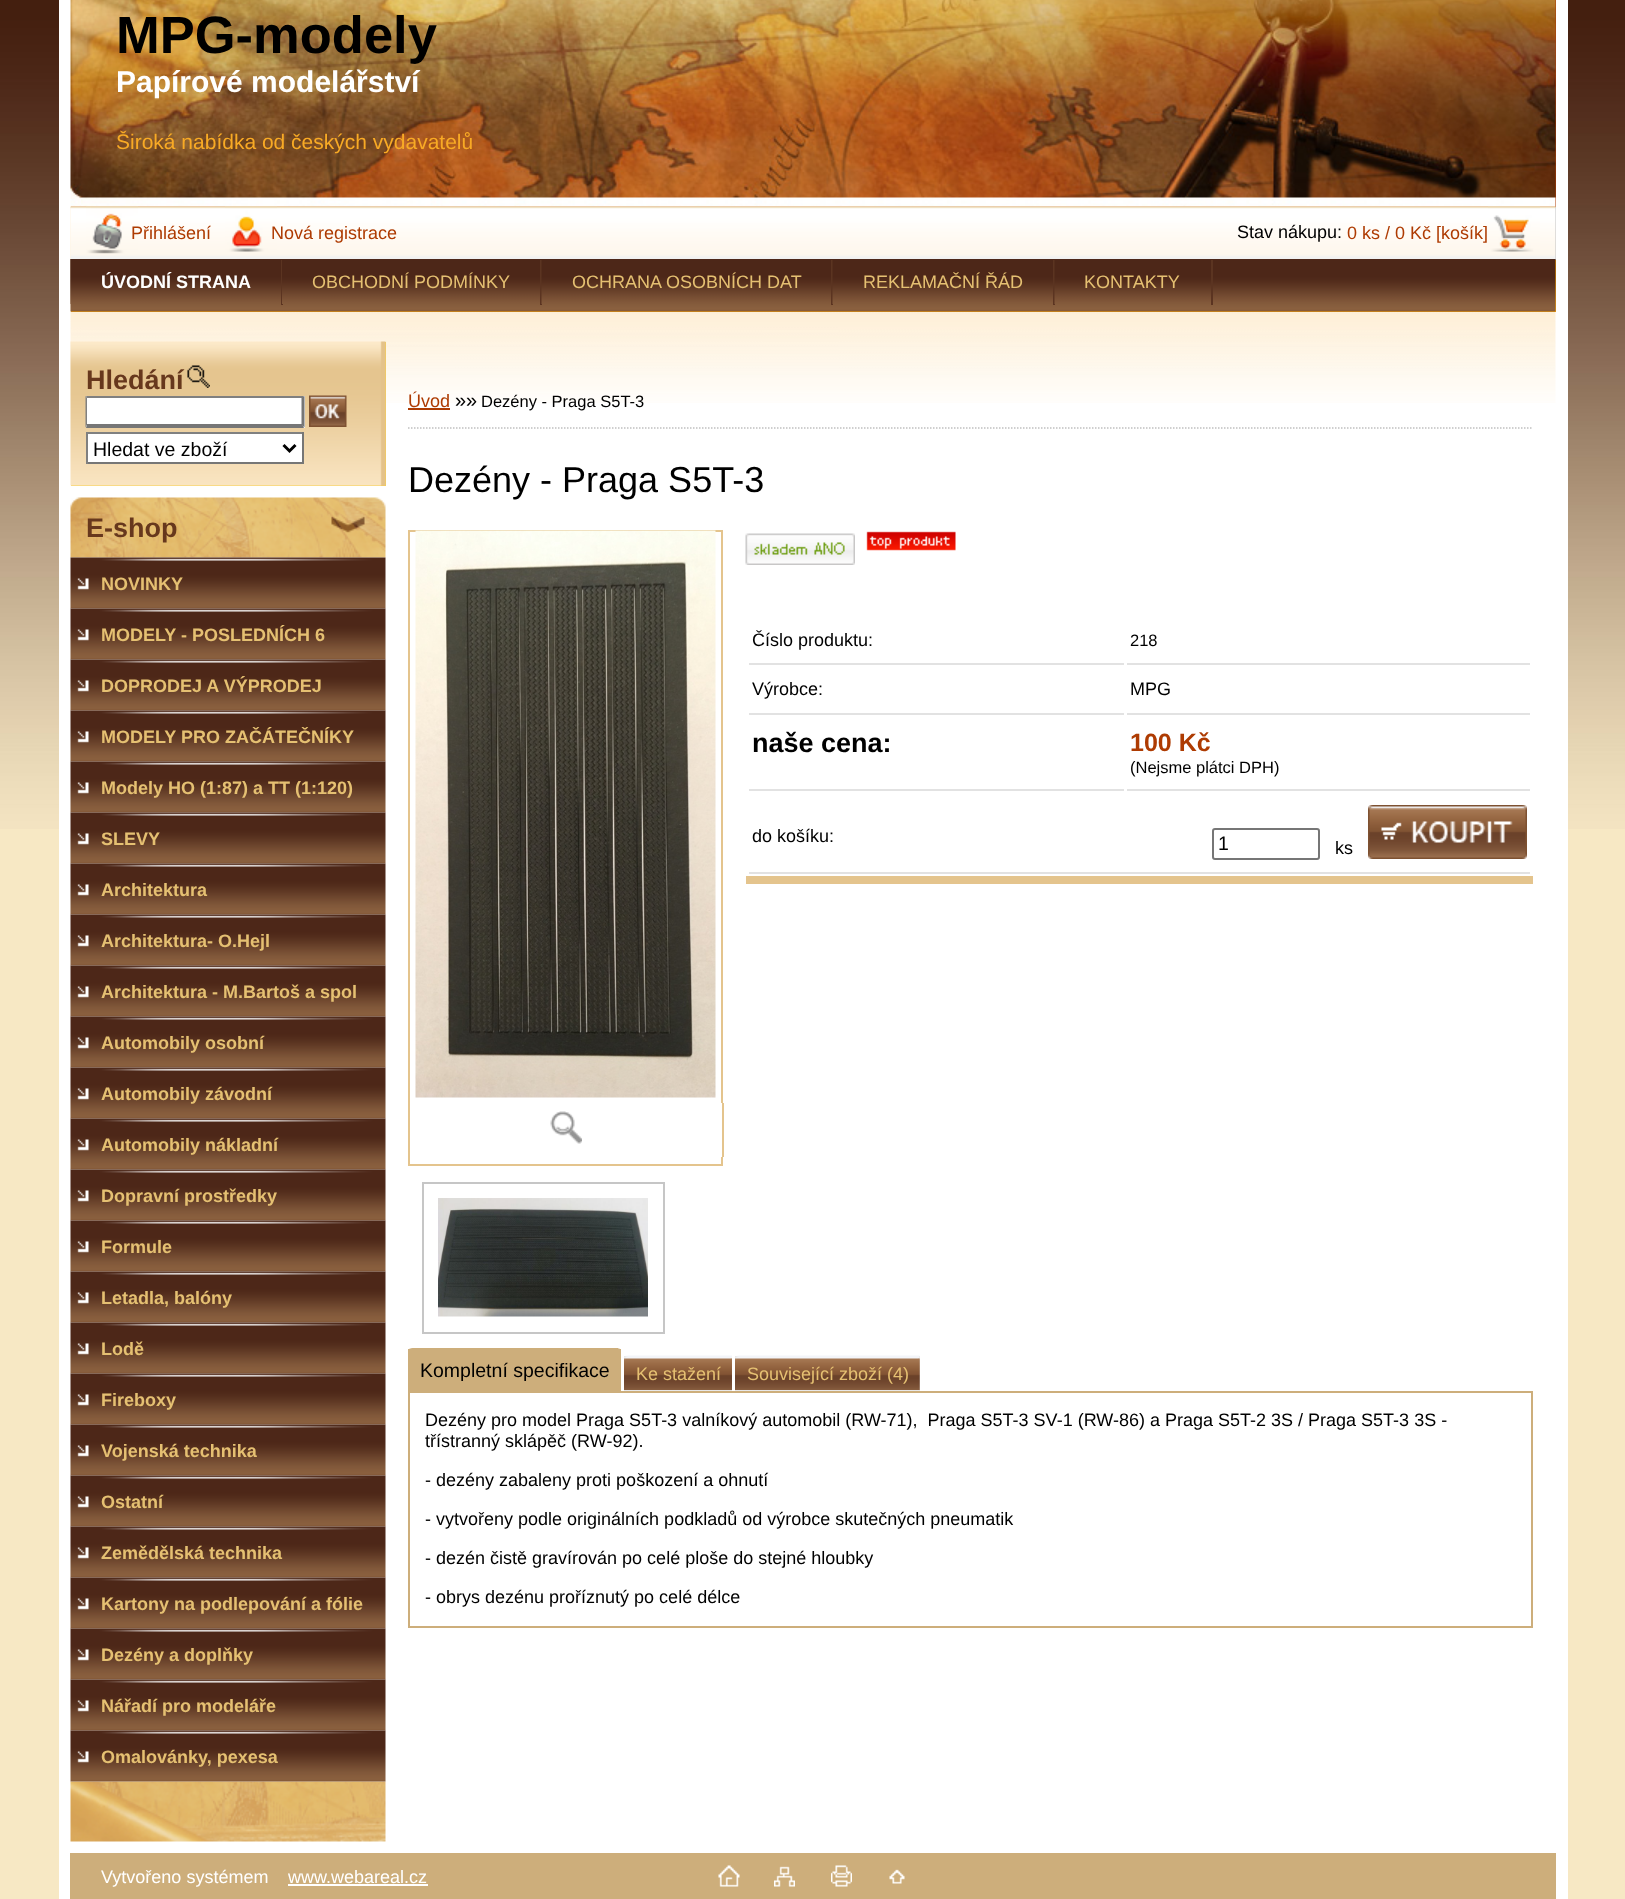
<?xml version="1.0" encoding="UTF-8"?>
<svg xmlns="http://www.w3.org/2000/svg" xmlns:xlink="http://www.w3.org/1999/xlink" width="1625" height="1899">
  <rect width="100%" height="100%" fill="#f7e8c4" />
  <image x="0" y="0" width="1625" height="829" xlink:href="image1.png" />
  <rect x="59" width="1509" height="1899" fill="#ffffff" />
  <rect x="71" width="1485" height="207" fill="#ae3b02" />
  <image x="70" y="0" width="1486" height="207" xlink:href="image2.png" />
  <image x="70" y="206" width="1486" height="197" xlink:href="image11.png" />
  <rect x="1555" y="207" width="1" height="53" fill="#c0c0c0" />
  <image x="70" y="206" width="1486" height="53" xlink:href="image3.png" />
  <image x="86" y="206" width="52" height="48" xlink:href="image4.png" />
  <image x="225" y="206" width="52" height="46" xlink:href="image5.png" />
  <image x="1488" y="206" width="52" height="46" xlink:href="image6.png" />
  <rect x="71" y="260" width="1485" height="52" fill="#ffa500" />
  <image x="70" y="259" width="1486" height="53" xlink:href="image7.png" />
  <image x="70" y="259" width="1" height="45" xlink:href="image8.png" />
  <rect x="281" y="260" width="2" height="45" fill="#5b3421" />
  <image x="282" y="260" width="1" height="44" xlink:href="image9.png" />
  <rect x="540" y="260" width="2" height="45" fill="#5b3421" />
  <image x="541" y="260" width="1" height="44" xlink:href="image10.png" />
  <rect x="831" y="260" width="2" height="45" fill="#5b3421" />
  <image x="832" y="260" width="1" height="44" xlink:href="image10.png" />
  <rect x="1053" y="260" width="2" height="45" fill="#5b3421" />
  <image x="1054" y="260" width="1" height="44" xlink:href="image10.png" />
  <rect x="1211" y="260" width="2" height="45" fill="#5b3421" />
  <rect x="71" y="342" width="315" height="144" fill="#f9cf4a" />
  <image x="70" y="341" width="316" height="145" xlink:href="image12.png" />
  <image x="187" y="365" width="23" height="23" xlink:href="image13.png" />
  <rect x="86" y="396" width="219" height="32" fill="#ffffff" />
  <path d="M 86 396 h 218 l -2 2 h -215 z" fill="#808080" />
  <path d="M 304.5 396 v 31.5 l -3 -3 v -27 z" fill="#767676" />
  <path d="M 304 428 h -218 l 1 -4 h 215 z" fill="#767676" />
  <path d="M 85.5 427.5 v -31.5 l 1.5 1.5 v 27 z" fill="#808080" />
  <image x="309" y="395" width="38" height="32" xlink:href="image14.png" />
  <rect x="88" y="434" width="214" height="28" fill="#ffffff" />
  <rect x="86" y="432" width="217" height="2" fill="#808080" />
  <rect x="302" y="432" width="2" height="32" fill="#767676" />
  <rect x="86" y="462" width="217" height="2" fill="#767676" />
  <rect x="86" y="432" width="2" height="32" fill="#808080" />
  <path d="M 283.5 445 l 6 6 l 6 -6" fill="none" stroke="#000000" stroke-width="3" />
  <image x="70" y="497" width="316" height="61" xlink:href="image15.png" />
  <image x="70" y="557" width="316" height="52" xlink:href="image16.png" />
  <image x="70" y="608" width="316" height="52" xlink:href="image17.png" />
  <image x="70" y="659" width="316" height="52" xlink:href="image17.png" />
  <image x="70" y="710" width="316" height="52" xlink:href="image17.png" />
  <image x="70" y="761" width="316" height="52" xlink:href="image17.png" />
  <image x="70" y="812" width="316" height="52" xlink:href="image17.png" />
  <image x="70" y="863" width="316" height="52" xlink:href="image17.png" />
  <image x="70" y="914" width="316" height="52" xlink:href="image17.png" />
  <image x="70" y="965" width="316" height="52" xlink:href="image17.png" />
  <image x="70" y="1016" width="316" height="52" xlink:href="image17.png" />
  <image x="70" y="1067" width="316" height="52" xlink:href="image17.png" />
  <image x="70" y="1118" width="316" height="52" xlink:href="image17.png" />
  <image x="70" y="1169" width="316" height="52" xlink:href="image17.png" />
  <image x="70" y="1220" width="316" height="52" xlink:href="image17.png" />
  <image x="70" y="1271" width="316" height="52" xlink:href="image17.png" />
  <image x="70" y="1322" width="316" height="52" xlink:href="image17.png" />
  <image x="70" y="1373" width="316" height="52" xlink:href="image17.png" />
  <image x="70" y="1424" width="316" height="52" xlink:href="image17.png" />
  <image x="70" y="1475" width="316" height="52" xlink:href="image17.png" />
  <image x="70" y="1526" width="316" height="52" xlink:href="image17.png" />
  <image x="70" y="1577" width="316" height="52" xlink:href="image17.png" />
  <image x="70" y="1628" width="316" height="52" xlink:href="image17.png" />
  <image x="70" y="1679" width="316" height="52" xlink:href="image17.png" />
  <image x="70" y="1781" width="316" height="61" xlink:href="image19.png" />
  <image x="70" y="1730" width="316" height="52" xlink:href="image18.png" />
  <path d="M 408 428 h 1125" fill="none" stroke="#c0c0c0" stroke-width="1.5" stroke-dasharray="1.5 1.5" />
  <rect x="408" y="408" width="42" height="2" fill="#ae3b02" />
  <rect x="409" y="531" width="313" height="634" fill="none" stroke="#e4c48d" stroke-width="2" />
  <image x="415" y="530" width="301" height="568" xlink:href="image20.png" />
  <rect x="721" y="1103" width="1" height="54" fill="#ffffff" />
  <rect x="723" y="1103" width="1" height="54" fill="#e4c48d" />
  <image x="550" y="1111" width="32" height="33" xlink:href="image21.png" />
  <image x="745" y="533" width="110" height="32" xlink:href="image22.png" />
  <image x="866" y="531" width="90" height="20" xlink:href="image23.png" />
  <rect x="746" y="876" width="787" height="8" fill="#e4c48d" />
  <rect x="749" y="663" width="375" height="2" fill="#e2e2e2" />
  <rect x="1127" y="663" width="403" height="2" fill="#e2e2e2" />
  <rect x="749" y="713" width="375" height="2" fill="#e2e2e2" />
  <rect x="1127" y="713" width="403" height="2" fill="#e2e2e2" />
  <rect x="749" y="789" width="375" height="2" fill="#e2e2e2" />
  <rect x="1127" y="789" width="403" height="2" fill="#e2e2e2" />
  <rect x="749" y="872" width="781" height="2" fill="#e2e2e2" />
  <rect x="1213" y="829" width="106" height="30" rx="2" fill="none" stroke="#767676" stroke-width="2" />
  <image x="1368" y="805" width="159" height="54" xlink:href="image24.png" />
  <rect x="423" y="1183" width="241" height="150" fill="none" stroke="#c6c6c6" stroke-width="2" />
  <image x="438" y="1198" width="210" height="119" xlink:href="image25.png" />
  <rect x="408" y="1349" width="213" height="42" fill="#cdae7b" />
  <image x="409" y="1348" width="209" height="1" xlink:href="image26.png" />
  <image x="412" y="1348" width="208" height="1" xlink:href="image27.png" />
  <rect x="624" y="1356" width="108" height="35" fill="#e7e7e7" />
  <image x="624" y="1355" width="108" height="35" xlink:href="image28.png" />
  <image x="730" y="1358" width="2" height="1" xlink:href="image29.png" />
  <rect x="735" y="1356" width="185" height="35" fill="#e7e7e7" />
  <image x="735" y="1355" width="185" height="35" xlink:href="image30.png" />
  <image x="918" y="1358" width="2" height="32" xlink:href="image31.png" />
  <rect x="409" y="1392" width="1123" height="235" fill="none" stroke="#cdae7b" stroke-width="2" />
  <rect x="70" y="1853" width="1486" height="46" fill="#cdae7b" />
  <rect x="288" y="1884" width="140" height="2" fill="#ffffff" />
  <image x="718" y="1865" width="22" height="22" xlink:href="image32.png" />
  <image x="774" y="1866" width="21" height="21" xlink:href="image33.png" />
  <image x="831" y="1865" width="21" height="22" xlink:href="image34.png" />
  <image x="889" y="1869" width="16" height="15" xlink:href="image35.png" />
  <text x="116" y="53" style="font-family: Liberation Sans; font-size: 52.5px; font-weight: bold; fill: #000000">MPG-modely</text>
  <text x="116" y="92" style="font-family: Liberation Sans; font-size: 30px; font-weight: bold; fill: #ffffff">Papírové modelářství</text>
  <text x="116" y="149" style="font-family: Liberation Sans; font-size: 21px; fill: #f8aa25">Široká nabídka od českých vydavatelů</text>
  <text x="131" y="239" style="font-family: Liberation Sans; font-size: 18px; fill: #ae3b02">Přihlášení</text>
  <text x="271" y="239" style="font-family: Liberation Sans; font-size: 18px; fill: #ae3b02">Nová registrace</text>
  <text x="1237" y="238" style="font-family: Liberation Sans; font-size: 18px; fill: #000000">Stav nákupu:</text>
  <text x="1347" y="239" style="font-family: Liberation Sans; font-size: 18px; fill: #ae3b02">0 ks / 0 Kč [košík]</text>
  <text x="101" y="288" style="font-family: Liberation Sans; font-size: 18px; font-weight: bold; fill: #ffffff">ÚVODNÍ STRANA</text>
  <text x="312" y="288" style="font-family: Liberation Sans; font-size: 18px; fill: #e5c072">OBCHODNÍ PODMÍNKY</text>
  <text x="572" y="288" style="font-family: Liberation Sans; font-size: 18px; fill: #e5c072">OCHRANA OSOBNÍCH DAT</text>
  <text x="863" y="288" style="font-family: Liberation Sans; font-size: 18px; fill: #e5c072">REKLAMAČNÍ ŘÁD</text>
  <text x="1084" y="288" style="font-family: Liberation Sans; font-size: 18px; fill: #e5c072">KONTAKTY</text>
  <text x="86" y="389" style="font-family: Liberation Sans; font-size: 27px; font-weight: bold; fill: #67381d">Hledání</text>
  <text x="93" y="456" style="font-family: Liberation Sans; font-size: 19.5px; fill: #000000">Hledat ve zboží</text>
  <text x="86" y="537" style="font-family: Liberation Sans; font-size: 27px; font-weight: bold; fill: #67381d">E-shop</text>
  <text x="101" y="590" style="font-family: Liberation Sans; font-size: 18px; font-weight: bold; fill: #e5c072">NOVINKY</text>
  <text x="101" y="641" style="font-family: Liberation Sans; font-size: 18px; font-weight: bold; fill: #e5c072">MODELY - POSLEDNÍCH 6</text>
  <text x="101" y="692" style="font-family: Liberation Sans; font-size: 18px; font-weight: bold; fill: #e5c072">DOPRODEJ A VÝPRODEJ</text>
  <text x="101" y="743" style="font-family: Liberation Sans; font-size: 18px; font-weight: bold; fill: #e5c072">MODELY PRO ZAČÁTEČNÍKY</text>
  <text x="101" y="794" style="font-family: Liberation Sans; font-size: 18px; font-weight: bold; fill: #e5c072">Modely HO (1:87) a TT (1:120)</text>
  <text x="101" y="845" style="font-family: Liberation Sans; font-size: 18px; font-weight: bold; fill: #e5c072">SLEVY</text>
  <text x="101" y="896" style="font-family: Liberation Sans; font-size: 18px; font-weight: bold; fill: #e5c072">Architektura</text>
  <text x="101" y="947" style="font-family: Liberation Sans; font-size: 18px; font-weight: bold; fill: #e5c072">Architektura- O.Hejl</text>
  <text x="101" y="998" style="font-family: Liberation Sans; font-size: 18px; font-weight: bold; fill: #e5c072">Architektura - M.Bartoš a spol</text>
  <text x="101" y="1049" style="font-family: Liberation Sans; font-size: 18px; font-weight: bold; fill: #e5c072">Automobily osobní</text>
  <text x="101" y="1100" style="font-family: Liberation Sans; font-size: 18px; font-weight: bold; fill: #e5c072">Automobily závodní</text>
  <text x="101" y="1151" style="font-family: Liberation Sans; font-size: 18px; font-weight: bold; fill: #e5c072">Automobily nákladní</text>
  <text x="101" y="1202" style="font-family: Liberation Sans; font-size: 18px; font-weight: bold; fill: #e5c072">Dopravní prostředky</text>
  <text x="101" y="1253" style="font-family: Liberation Sans; font-size: 18px; font-weight: bold; fill: #e5c072">Formule</text>
  <text x="101" y="1304" style="font-family: Liberation Sans; font-size: 18px; font-weight: bold; fill: #e5c072">Letadla, balóny</text>
  <text x="101" y="1355" style="font-family: Liberation Sans; font-size: 18px; font-weight: bold; fill: #e5c072">Lodě</text>
  <text x="101" y="1406" style="font-family: Liberation Sans; font-size: 18px; font-weight: bold; fill: #e5c072">Fireboxy</text>
  <text x="101" y="1457" style="font-family: Liberation Sans; font-size: 18px; font-weight: bold; fill: #e5c072">Vojenská technika</text>
  <text x="101" y="1508" style="font-family: Liberation Sans; font-size: 18px; font-weight: bold; fill: #e5c072">Ostatní</text>
  <text x="101" y="1559" style="font-family: Liberation Sans; font-size: 18px; font-weight: bold; fill: #e5c072">Zemědělská technika</text>
  <text x="101" y="1610" style="font-family: Liberation Sans; font-size: 18px; font-weight: bold; fill: #e5c072">Kartony na podlepování a fólie</text>
  <text x="101" y="1661" style="font-family: Liberation Sans; font-size: 18px; font-weight: bold; fill: #e5c072">Dezény a doplňky</text>
  <text x="101" y="1712" style="font-family: Liberation Sans; font-size: 18px; font-weight: bold; fill: #e5c072">Nářadí pro modeláře</text>
  <text x="101" y="1763" style="font-family: Liberation Sans; font-size: 18px; font-weight: bold; fill: #e5c072">Omalovánky, pexesa</text>
  <text x="408" y="407" style="font-family: Liberation Sans; font-size: 18px; fill: #ae3b02">Úvod</text>
  <text x="455" y="407" style="font-family: Liberation Sans; font-size: 20px; fill: #000000">»»</text>
  <text x="481" y="407" style="font-family: Liberation Sans; font-size: 16.5px; fill: #000000">Dezény - Praga S5T-3</text>
  <text x="408" y="492" style="font-family: Liberation Sans; font-size: 36px; fill: #000000">Dezény - Praga S5T-3</text>
  <text x="752" y="646" style="font-family: Liberation Sans; font-size: 18px; fill: #000000">Číslo produktu:</text>
  <text x="1130" y="646" style="font-family: Liberation Sans; font-size: 16.5px; fill: #000000">218</text>
  <text x="752" y="695" style="font-family: Liberation Sans; font-size: 18px; fill: #000000">Výrobce:</text>
  <text x="1130" y="695" style="font-family: Liberation Sans; font-size: 18px; fill: #000000">MPG</text>
  <text x="752" y="752" style="font-family: Liberation Sans; font-size: 27px; font-weight: bold; fill: #000000">naše cena:</text>
  <text x="1130" y="751" style="font-family: Liberation Sans; font-size: 25px; font-weight: bold; fill: #ae3b02">100 Kč</text>
  <text x="1130" y="773" style="font-family: Liberation Sans; font-size: 16.5px; fill: #000000">(Nejsme plátci DPH)</text>
  <text x="752" y="842" style="font-family: Liberation Sans; font-size: 18px; fill: #000000">do košíku:</text>
  <text x="1218" y="850" style="font-family: Liberation Sans; font-size: 19.5px; fill: #000000">1</text>
  <text x="1335" y="854" style="font-family: Liberation Sans; font-size: 18px; fill: #000000">ks</text>
  <text x="420" y="1377" style="font-family: Liberation Sans; font-size: 19.5px; fill: #000000">Kompletní specifikace</text>
  <text x="636" y="1380" style="font-family: Liberation Sans; font-size: 18px; fill: #e5c072">Ke stažení</text>
  <text x="747" y="1380" style="font-family: Liberation Sans; font-size: 18px; fill: #e5c072">Související zboží (4)</text>
  <text x="425" y="1426" style="font-family: Liberation Sans; font-size: 18px; fill: #000000" xml:space="preserve">Dezény pro model Praga S5T-3 valníkový automobil (RW-71),  Praga S5T-3 SV-1 (RW-86) a Praga S5T-2 3S / Praga S5T-3 3S -</text>
  <text x="425" y="1447" style="font-family: Liberation Sans; font-size: 18px; fill: #000000">třístranný sklápěč (RW-92).</text>
  <text x="425" y="1486" style="font-family: Liberation Sans; font-size: 18px; fill: #000000">- dezény zabaleny proti poškození a ohnutí</text>
  <text x="425" y="1525" style="font-family: Liberation Sans; font-size: 18px; fill: #000000">- vytvořeny podle originálních podkladů od výrobce skutečných pneumatik</text>
  <text x="425" y="1564" style="font-family: Liberation Sans; font-size: 18px; fill: #000000">- dezén čistě gravírován po celé ploše do stejné hloubky</text>
  <text x="425" y="1603" style="font-family: Liberation Sans; font-size: 18px; fill: #000000">- obrys dezénu proříznutý po celé délce</text>
  <text x="101" y="1883" style="font-family: Liberation Sans; font-size: 18px; fill: #ffffff">Vytvořeno systémem</text>
  <text x="288" y="1883" style="font-family: Liberation Sans; font-size: 18px; fill: #ffffff">www.webareal.cz</text>
</svg>
